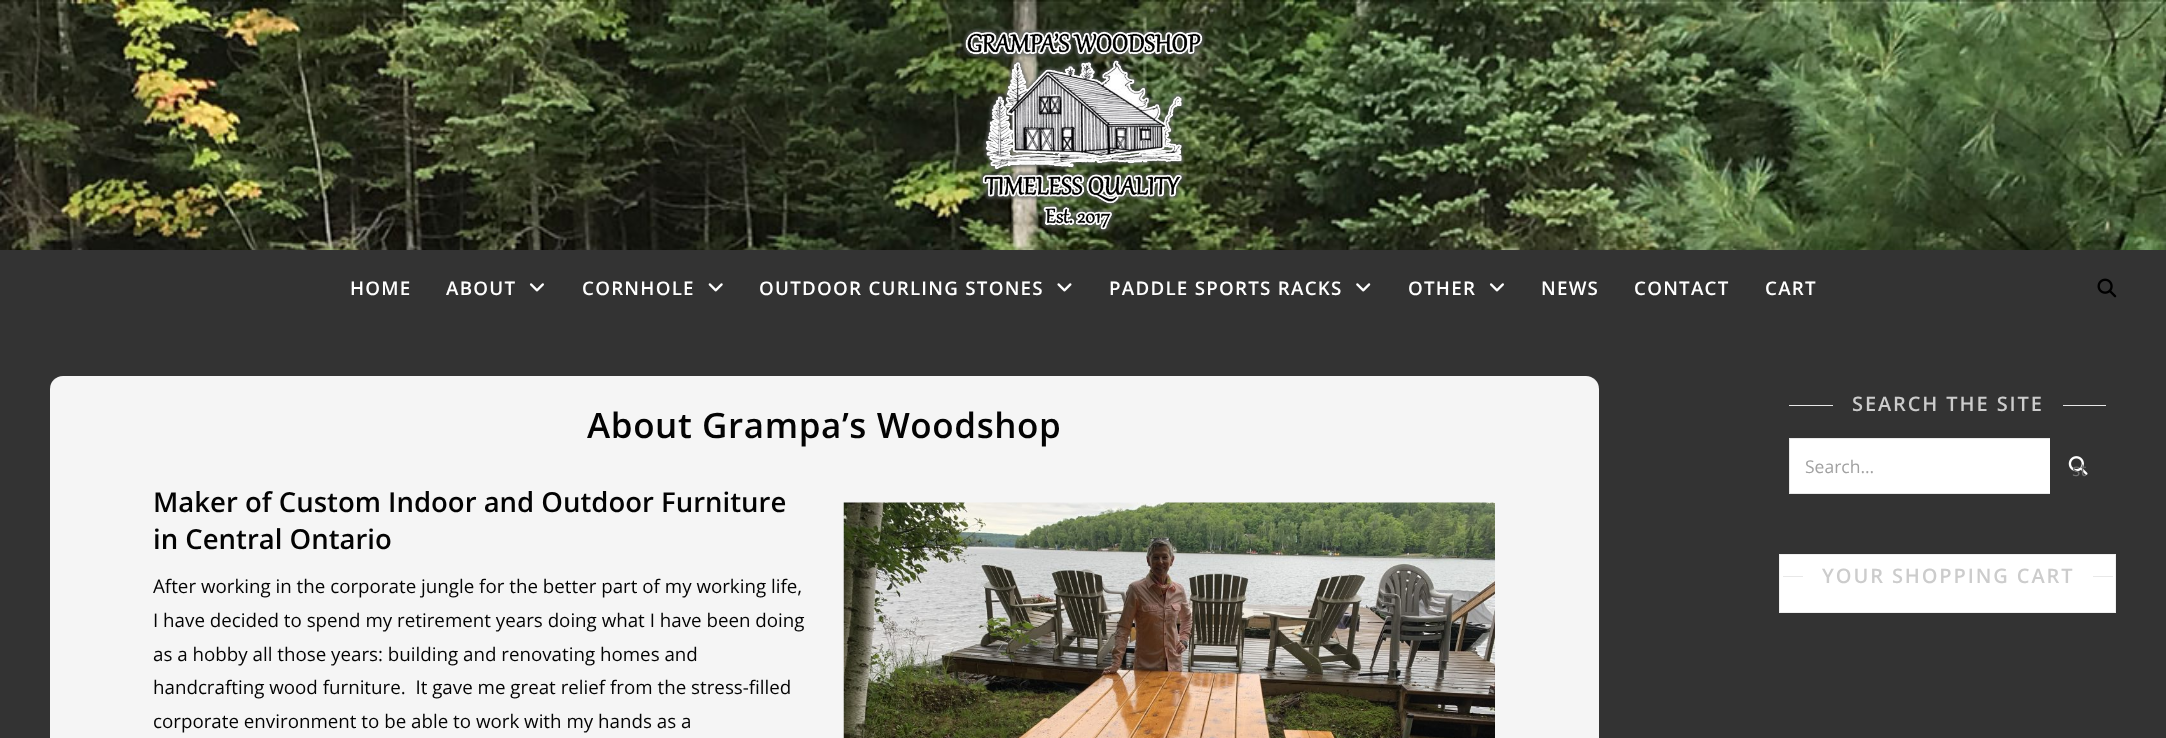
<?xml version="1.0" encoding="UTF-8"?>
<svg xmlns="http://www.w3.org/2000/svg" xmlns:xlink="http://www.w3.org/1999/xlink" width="2166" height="738">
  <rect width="100%" height="100%" fill="#333333" />
  <image x="0" y="0" width="2166" height="250" xlink:href="image1.png" />
  <image x="962" y="28" width="244" height="205" xlink:href="image2.png" />
  <image x="529" y="283" width="15" height="9" xlink:href="image3.png" />
  <image x="708" y="283" width="15" height="9" xlink:href="image4.png" />
  <image x="1057" y="283" width="15" height="9" xlink:href="image5.png" />
  <image x="1356" y="283" width="15" height="9" xlink:href="image6.png" />
  <image x="1489" y="283" width="15" height="9" xlink:href="image3.png" />
  <image x="2097" y="278" width="20" height="20" xlink:href="image7.png" />
  <rect x="50" y="376" width="1549" height="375" rx="13" fill="#f5f5f5" />
  <image x="843" y="502" width="652" height="236" xlink:href="image8.png" />
  <rect x="1789" y="405" width="44" height="1" fill="#e8e8e8" />
  <rect x="2063" y="405" width="43" height="1" fill="#e8e8e8" />
  <rect x="1790" y="439" width="260" height="54" fill="#ffffff" />
  <rect x="1789.5" y="438.5" width="316" height="55" fill="none" stroke="#e8e8e8" />
  <rect x="2050" y="438" width="56" height="56" fill="#333333" />
  <image x="2068" y="456" width="20" height="19" xlink:href="image9.png" />
  <rect x="1779.5" y="554.5" width="336" height="58" fill="#ffffff" stroke="#efefef" />
  <rect x="1783" y="576" width="20" height="1" fill="#e8e8e8" />
  <rect x="2093" y="576" width="20" height="1" fill="#e8e8e8" />
  <text x="350" y="295" style="font-family: Open Sans; font-size: 18.75px; font-weight: 600; letter-spacing: 1.25px; fill: #ffffff">HOME</text>
  <text x="446" y="295" style="font-family: Open Sans; font-size: 18.75px; font-weight: 600; letter-spacing: 1.25px; fill: #ffffff">ABOUT</text>
  <text x="582" y="295" style="font-family: Open Sans; font-size: 18.75px; font-weight: 600; letter-spacing: 1.25px; fill: #ffffff">CORNHOLE</text>
  <text x="759" y="295" style="font-family: Open Sans; font-size: 18.75px; font-weight: 600; letter-spacing: 1.25px; fill: #ffffff">OUTDOOR CURLING STONES</text>
  <text x="1109" y="295" style="font-family: Open Sans; font-size: 18.75px; font-weight: 600; letter-spacing: 1.25px; fill: #ffffff">PADDLE SPORTS RACKS</text>
  <text x="1408" y="295" style="font-family: Open Sans; font-size: 18.75px; font-weight: 600; letter-spacing: 1.25px; fill: #ffffff">OTHER</text>
  <text x="1541" y="295" style="font-family: Open Sans; font-size: 18.75px; font-weight: 600; letter-spacing: 1.25px; fill: #ffffff">NEWS</text>
  <text x="1634" y="295" style="font-family: Open Sans; font-size: 18.75px; font-weight: 600; letter-spacing: 1.25px; fill: #ffffff">CONTACT</text>
  <text x="1765" y="295" style="font-family: Open Sans; font-size: 18.75px; font-weight: 600; letter-spacing: 1.25px; fill: #ffffff">CART</text>
  <text x="587" y="438" style="font-family: Open Sans; font-size: 35px; font-weight: 600; letter-spacing: 0.6px; fill: #030303">About Grampa’s Woodshop</text>
  <text x="153" y="512" style="font-family: Open Sans; font-size: 27.5px; font-weight: 600; fill: #030303">Maker of Custom Indoor and Outdoor Furniture</text>
  <text x="153" y="549" style="font-family: Open Sans; font-size: 27.5px; font-weight: 600; fill: #030303">in Central Ontario</text>
  <text x="153" y="593" style="font-family: Open Sans; font-size: 18.75px; fill: #030303">After working in the corporate jungle for the better part of my working life,</text>
  <text x="153" y="627" style="font-family: Open Sans; font-size: 18.75px; fill: #030303">I have decided to spend my retirement years doing what I have been doing</text>
  <text x="153" y="661" style="font-family: Open Sans; font-size: 18.75px; fill: #030303">as a hobby all those years: building and renovating homes and</text>
  <text x="153" y="694" style="font-family: Open Sans; font-size: 18.75px; fill: #030303" xml:space="preserve">handcrafting wood furniture.  It gave me great relief from the stress-filled</text>
  <text x="153" y="728" style="font-family: Open Sans; font-size: 18.75px; fill: #030303">corporate environment to be able to work with my hands as a</text>
  <text x="1852" y="411" style="font-family: Open Sans; font-size: 20px; font-weight: 600; letter-spacing: 1.9px; fill: #cccccc">SEARCH THE SITE</text>
  <text x="1805" y="473" style="font-family: Open Sans; font-size: 17.5px; fill: #a1a1a1">Search...</text>
  <text x="2072" y="476" style="font-family: Open Sans; font-size: 17.5px; fill: #717171">st</text>
  <text x="1822" y="583" style="font-family: Open Sans; font-size: 20px; font-weight: 600; letter-spacing: 1.9px; fill: #cccccc">YOUR SHOPPING CART</text>
</svg>
